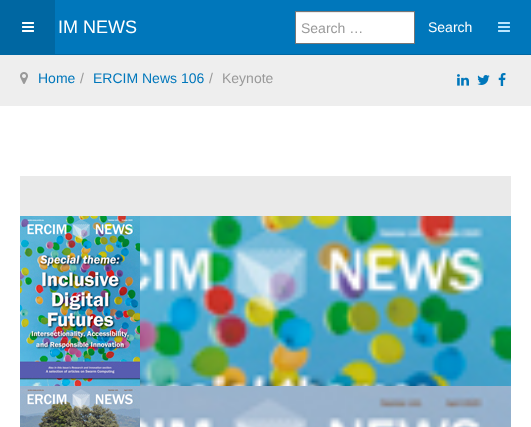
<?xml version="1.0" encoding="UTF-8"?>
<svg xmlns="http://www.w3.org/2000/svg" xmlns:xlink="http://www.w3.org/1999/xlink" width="531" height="427">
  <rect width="100%" height="100%" fill="#ffffff" />
  <rect x="55" width="476" height="54" fill="#0077bb" />
  <rect x="55" y="54" width="476" height="1" fill="#0067a2" />
  <rect width="55" height="55" fill="#0067a2" />
  <image x="22" y="22" width="12" height="10" xlink:href="image1.png" />
  <rect x="296" y="13" width="118" height="30" fill="#ffffff" />
  <rect x="296" y="12" width="118" height="1" fill="#ececec" />
  <rect x="295.5" y="11.5" width="119" height="32" fill="none" stroke="#777777" />
  <image x="498" y="22" width="12" height="10" xlink:href="image2.png" />
  <rect y="55" width="531" height="51" fill="#eeeeee" />
  <image x="20" y="72" width="8" height="12" xlink:href="image3.png" />
  <image x="457" y="74" width="12" height="12" xlink:href="image4.png" />
  <image x="477" y="75" width="13" height="10" xlink:href="image5.png" />
  <image x="498" y="73" width="8" height="13" xlink:href="image6.png" />
  <rect x="20" y="176" width="491" height="40" fill="#eaeaea" />
  <image x="140" y="216" width="371" height="170" xlink:href="image7.png" />
  <image x="20" y="216" width="120" height="170" xlink:href="image8.png" />
  <image x="140" y="386" width="371" height="41" xlink:href="image9.png" />
  <image x="20" y="386" width="120" height="41" xlink:href="image10.png" />
  <text x="58" y="33" style="font-family: Liberation Sans; font-size: 18px; fill: #ffffff">IM NEWS</text>
  <text x="301" y="33" style="font-family: Liberation Sans; font-size: 14px; fill: #999999">Search …</text>
  <text x="428" y="32" style="font-family: Liberation Sans; font-size: 14px; fill: #ffffff">Search</text>
  <text x="38" y="83" style="font-family: Liberation Sans; font-size: 14px; fill: #0077bb">Home</text>
  <text x="80" y="83" style="font-family: Liberation Sans; font-size: 14px; fill: #999999">/</text>
  <text x="93" y="83" style="font-family: Liberation Sans; font-size: 14px; fill: #0077bb">ERCIM News 106</text>
  <text x="209" y="83" style="font-family: Liberation Sans; font-size: 14px; fill: #999999">/</text>
  <text x="222" y="83" style="font-family: Liberation Sans; font-size: 14px; fill: #999999">Keynote</text>
</svg>
